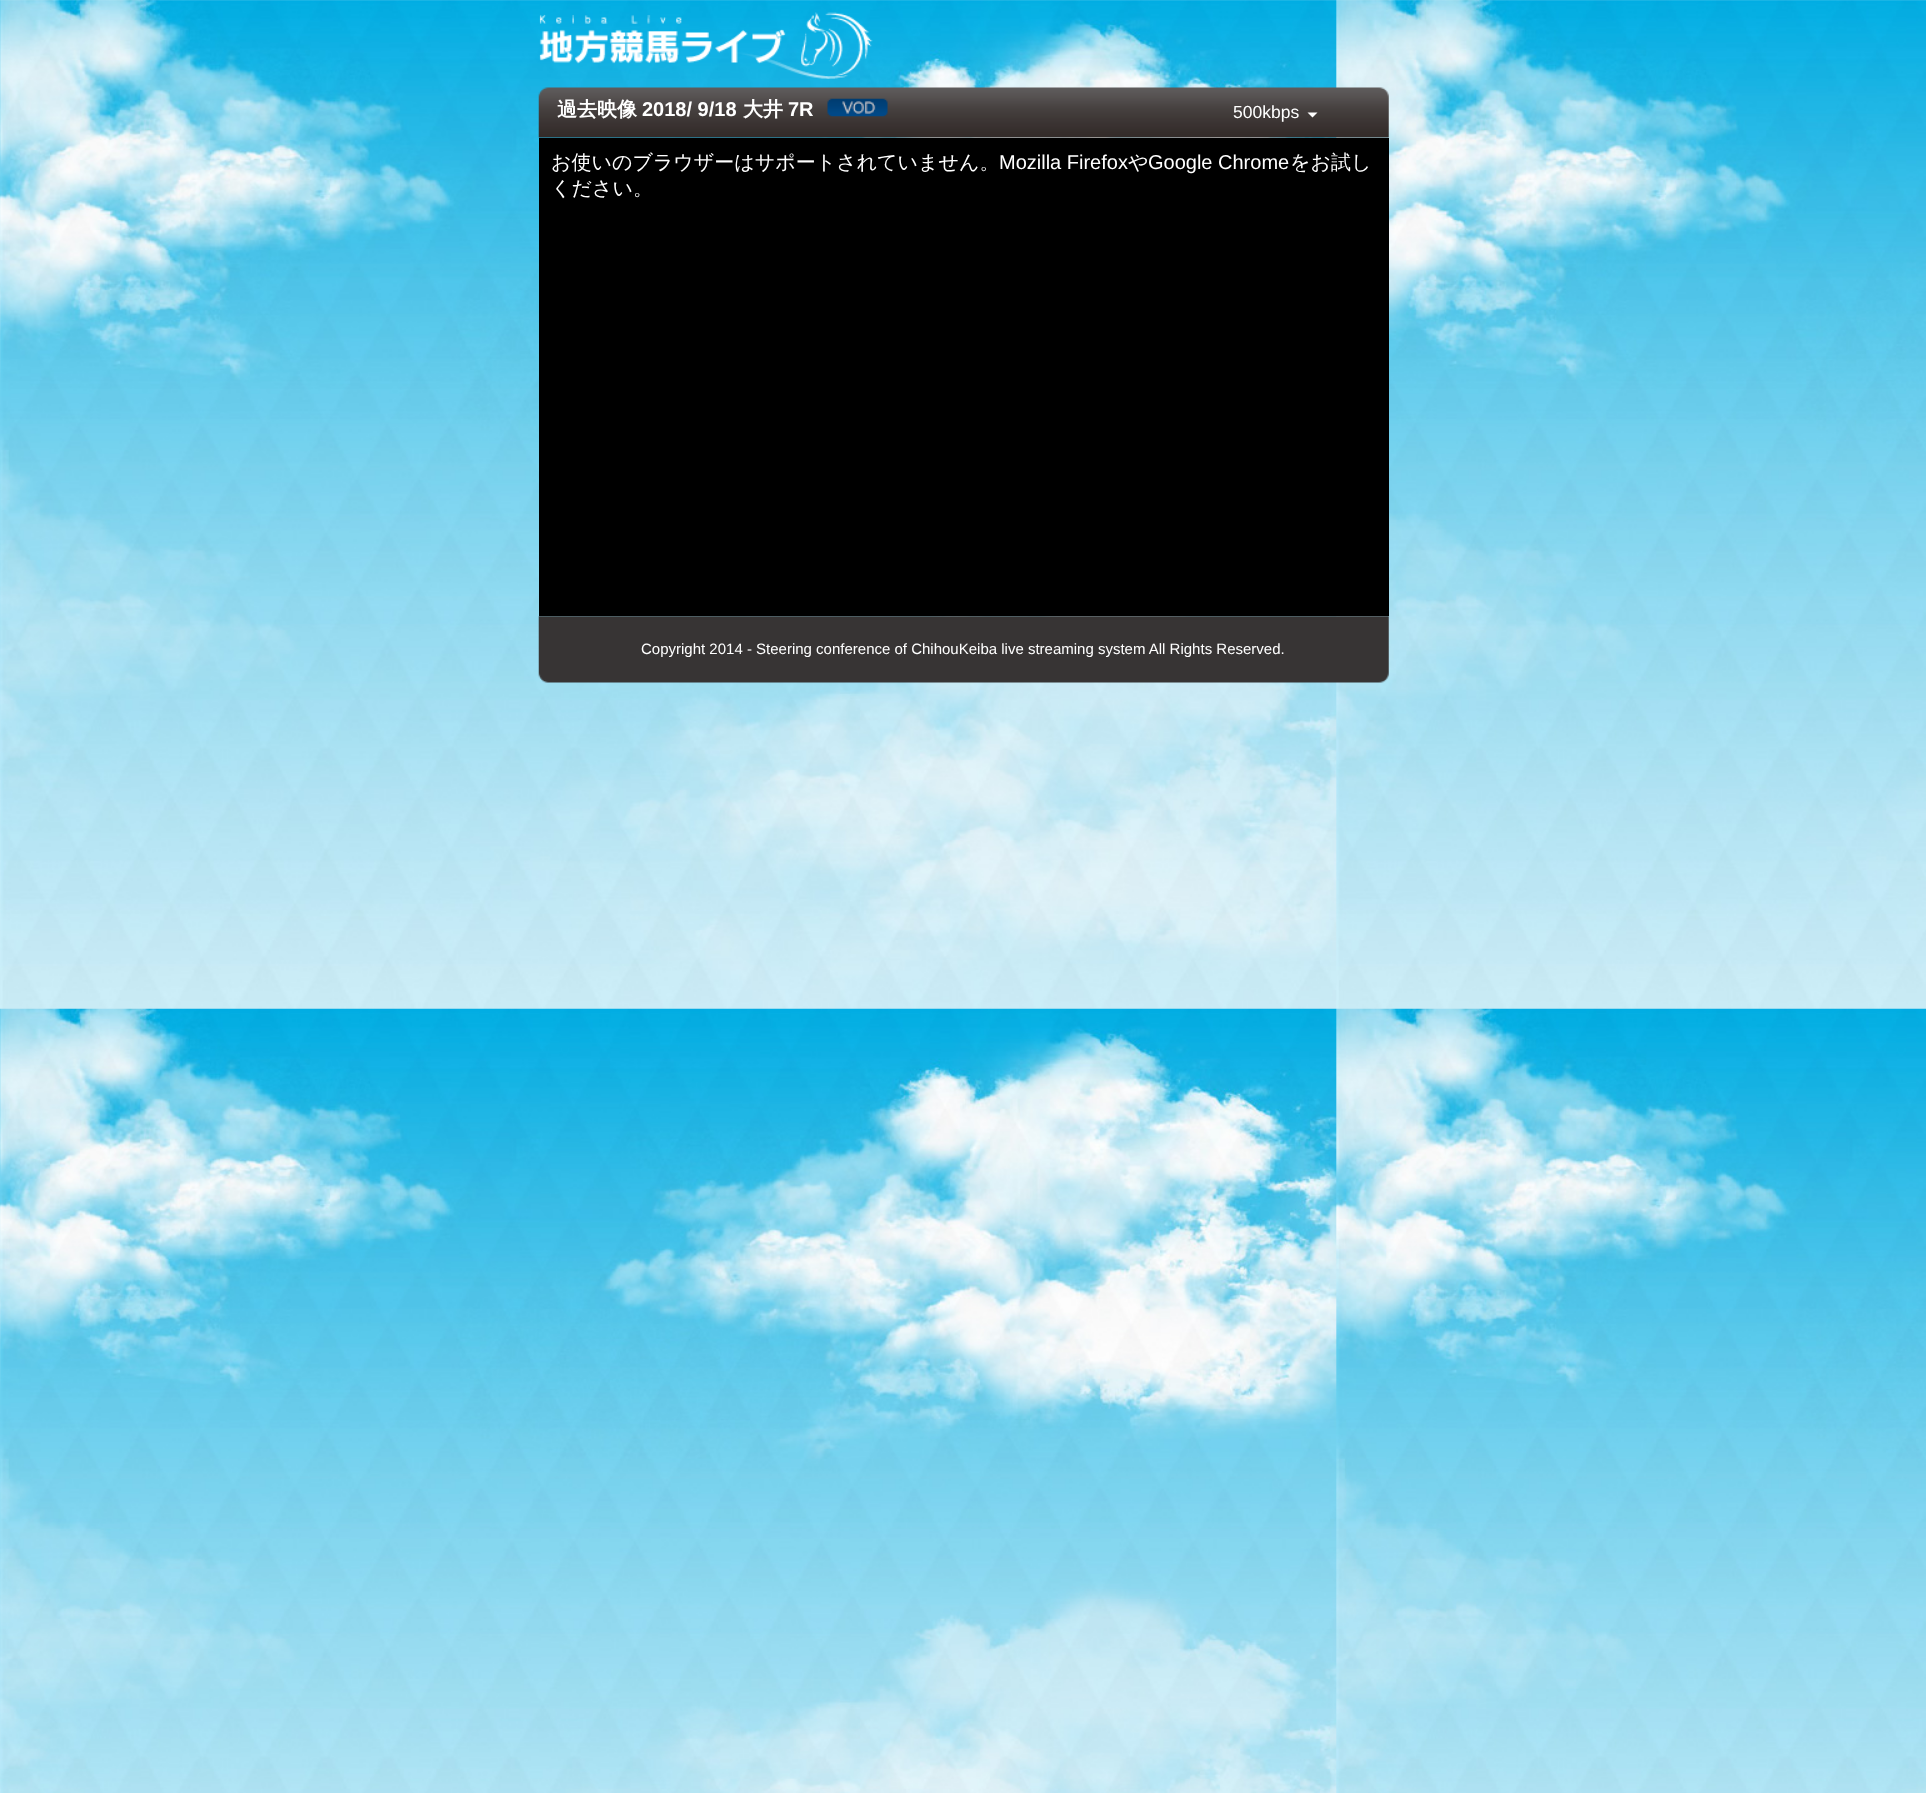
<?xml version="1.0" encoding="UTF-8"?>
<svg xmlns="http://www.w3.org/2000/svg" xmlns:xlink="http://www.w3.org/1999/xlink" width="1926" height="1793">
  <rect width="100%" height="100%" fill="#ffffff" />
  <image x="0" y="0" width="1926" height="1793" xlink:href="image1.png" />
  <image x="539" y="12" width="334" height="67" xlink:href="image2.png" />
  <image x="538" y="87" width="851" height="51" xlink:href="image3.png" />
  <image x="827" y="98" width="61" height="19" xlink:href="image4.png" />
  <path d="M 1307.5 112.5 h 10 l -5 5 z" fill="#ffffff" />
  <rect x="539" y="138" width="850" height="478" fill="#000000" />
  <image x="538" y="616" width="851" height="67" xlink:href="image5.png" />
  <text x="557" y="116" style="font-family: WenQuanYi Zen Hei; font-size: 20px; font-weight: bold; fill: #ffffff">過去映像</text>
  <text x="642" y="116" style="font-family: Liberation Sans; font-size: 20px; font-weight: bold; fill: #ffffff">2018/ 9/18</text>
  <text x="743" y="116" style="font-family: WenQuanYi Zen Hei; font-size: 20px; font-weight: bold; fill: #ffffff">大井</text>
  <text x="788" y="116" style="font-family: Liberation Sans; font-size: 20px; font-weight: bold; fill: #ffffff">7R</text>
  <text x="1233" y="118" style="font-family: Liberation Sans; font-size: 17.5px; fill: #ffffff">500kbps</text>
  <text x="551" y="169" style="font-family: WenQuanYi Zen Hei; font-size: 20px; font-weight: 500; fill: #ffffff">お使いのブラウザーはサポートされていません。</text>
  <text x="999" y="169" style="font-family: Liberation Sans; font-size: 20px; fill: #ffffff">Mozilla Firefox</text>
  <text x="1128" y="169" style="font-family: WenQuanYi Zen Hei; font-size: 20px; font-weight: 500; fill: #ffffff">や</text>
  <text x="1148" y="169" style="font-family: Liberation Sans; font-size: 20px; fill: #ffffff">Google Chrome</text>
  <text x="1290" y="169" style="font-family: WenQuanYi Zen Hei; font-size: 20px; font-weight: 500; fill: #ffffff">をお試し</text>
  <text x="551" y="195" style="font-family: WenQuanYi Zen Hei; font-size: 20px; font-weight: 500; fill: #ffffff">ください。</text>
  <text x="641" y="654" style="font-family: Liberation Sans; font-size: 15px; fill: #ffffff">Copyright 2014 - Steering conference of ChihouKeiba live streaming system All Rights Reserved.</text>
</svg>
